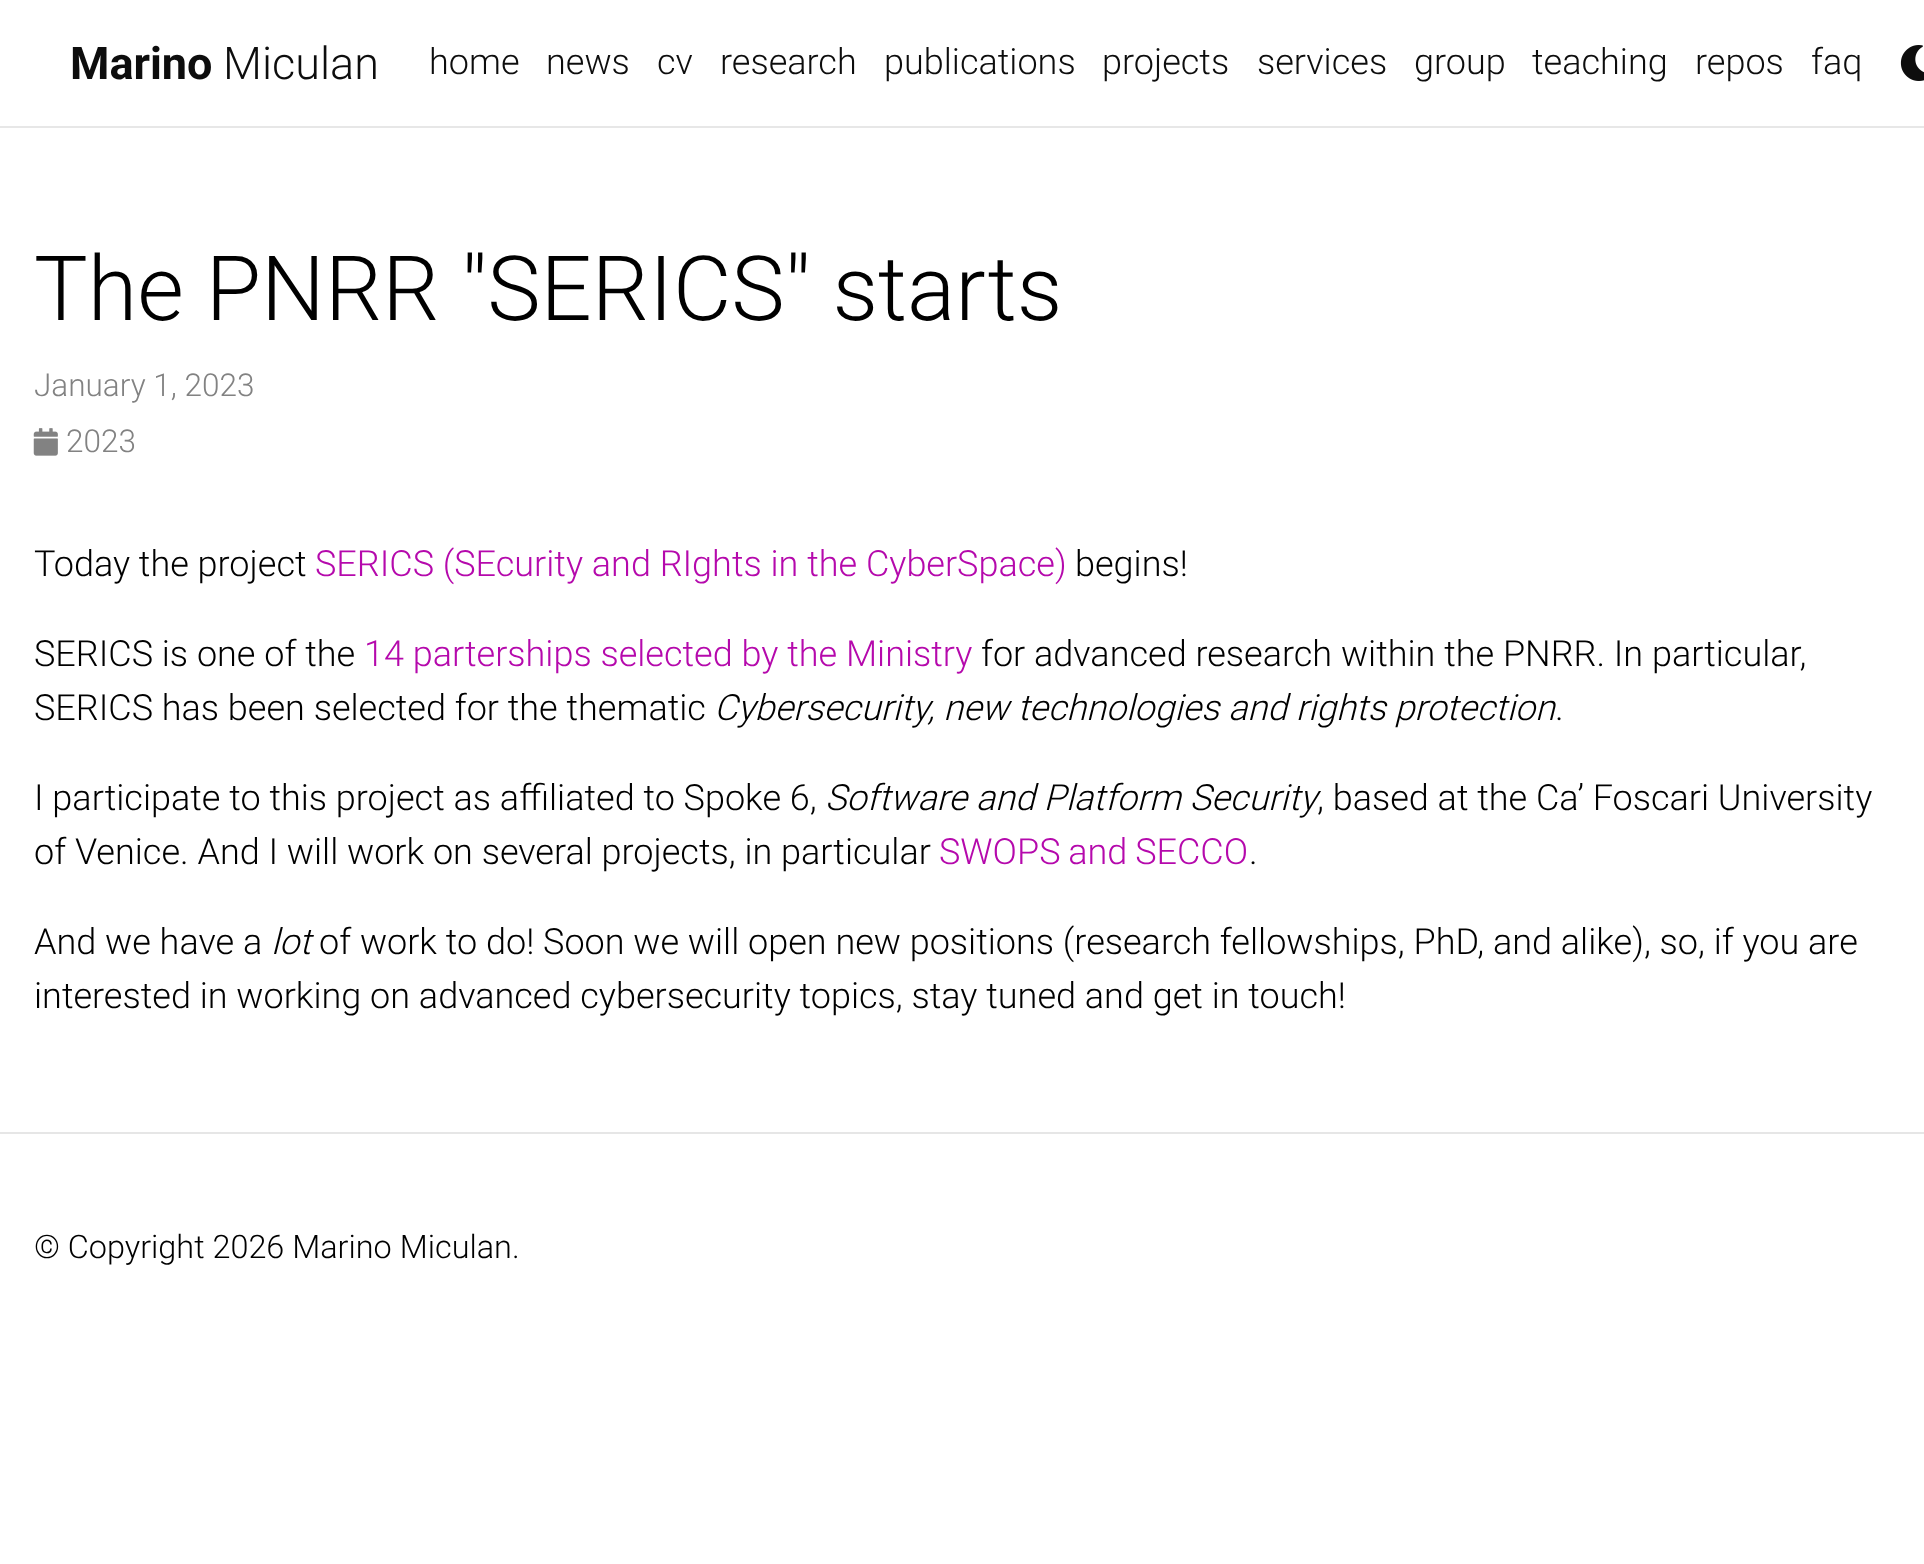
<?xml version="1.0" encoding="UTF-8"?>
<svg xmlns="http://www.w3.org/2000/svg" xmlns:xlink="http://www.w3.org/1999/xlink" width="1924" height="1564">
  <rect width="100%" height="100%" fill="#ffffff" />
  <rect y="126" width="1924" height="2" fill="#e7e7e7" />
  <image x="1900" y="45" width="24" height="36" xlink:href="image1.png" />
  <image x="33" y="428" width="25" height="28" xlink:href="image2.png" />
  <rect y="1132" width="1924" height="2" fill="#e6e6e6" />
  <text x="70" y="79" style="font-family: Roboto; font-size: 45px; font-weight: bold; fill: #0d0d0d">Marino</text>
  <text x="223" y="79" style="font-family: Roboto; font-size: 45px; font-weight: 300; fill: #0d0d0d">Miculan</text>
  <text x="429" y="74" style="font-family: Roboto; font-size: 36px; font-weight: 300; fill: #0d0d0d">home</text>
  <text x="546" y="74" style="font-family: Roboto; font-size: 36px; font-weight: 300; fill: #0d0d0d">news</text>
  <text x="657" y="74" style="font-family: Roboto; font-size: 36px; font-weight: 300; fill: #0d0d0d">cv</text>
  <text x="720" y="74" style="font-family: Roboto; font-size: 36px; font-weight: 300; fill: #0d0d0d">research</text>
  <text x="884" y="74" style="font-family: Roboto; font-size: 36px; font-weight: 300; fill: #0d0d0d">publications</text>
  <text x="1102" y="74" style="font-family: Roboto; font-size: 36px; font-weight: 300; fill: #0d0d0d">projects</text>
  <text x="1257" y="74" style="font-family: Roboto; font-size: 36px; font-weight: 300; fill: #0d0d0d">services</text>
  <text x="1414" y="74" style="font-family: Roboto; font-size: 36px; font-weight: 300; fill: #0d0d0d">group</text>
  <text x="1532" y="74" style="font-family: Roboto; font-size: 36px; font-weight: 300; fill: #0d0d0d">teaching</text>
  <text x="1695" y="74" style="font-family: Roboto; font-size: 36px; font-weight: 300; fill: #0d0d0d">repos</text>
  <text x="1811" y="74" style="font-family: Roboto; font-size: 36px; font-weight: 300; fill: #0d0d0d">faq</text>
  <text x="34" y="320" style="font-family: Roboto; font-size: 90px; font-weight: 300; fill: #000000">The PNRR "SERICS" starts</text>
  <text x="34" y="396" style="font-family: Roboto; font-size: 31.5px; font-weight: 300; fill: #828282">January 1, 2023</text>
  <text x="66" y="452" style="font-family: Roboto; font-size: 31.5px; font-weight: 300; fill: #828282">2023</text>
  <text x="34" y="576" style="font-family: Roboto; font-size: 36px; font-weight: 300; fill: #000000">Today the project</text>
  <text x="315" y="576" style="font-family: Roboto; font-size: 36px; font-weight: 300; fill: #b509ac">SERICS (SEcurity and RIghts in the CyberSpace)</text>
  <text x="1075" y="576" style="font-family: Roboto; font-size: 36px; font-weight: 300; fill: #000000">begins!</text>
  <text x="34" y="666" style="font-family: Roboto; font-size: 36px; font-weight: 300; fill: #000000">SERICS is one of the</text>
  <text x="364" y="666" style="font-family: Roboto; font-size: 36px; font-weight: 300; fill: #b509ac">14 parterships selected by the Ministry</text>
  <text x="981" y="666" style="font-family: Roboto; font-size: 36px; font-weight: 300; fill: #000000">for advanced research within the PNRR. In particular,</text>
  <text x="34" y="720" style="font-family: Roboto; font-size: 36px; font-weight: 300; fill: #000000">SERICS has been selected for the thematic</text>
  <text x="714" y="720" style="font-family: Roboto; font-size: 36px; font-weight: 300; font-style: italic; fill: #000000">Cybersecurity, new technologies and rights protection</text>
  <text x="1555" y="720" style="font-family: Roboto; font-size: 36px; font-weight: 300; fill: #000000">.</text>
  <text x="34" y="810" style="font-family: Roboto; font-size: 36px; font-weight: 300; fill: #000000">I participate to this project as affiliated to Spoke 6,</text>
  <text x="825" y="810" style="font-family: Roboto; font-size: 36px; font-weight: 300; font-style: italic; fill: #000000">Software and Platform Security</text>
  <text x="1317" y="810" style="font-family: Roboto; font-size: 36px; font-weight: 300; fill: #000000">, based at the Ca’ Foscari University</text>
  <text x="34" y="864" style="font-family: Roboto; font-size: 36px; font-weight: 300; fill: #000000">of Venice. And I will work on several projects, in particular</text>
  <text x="939" y="864" word-spacing="-1" style="font-family: Roboto; font-size: 36px; font-weight: 300; fill: #b509ac">SWOPS and SECCO</text>
  <text x="1249" y="864" style="font-family: Roboto; font-size: 36px; font-weight: 300; fill: #000000">.</text>
  <text x="34" y="954" style="font-family: Roboto; font-size: 36px; font-weight: 300; fill: #000000">And we have a</text>
  <text x="271" y="954" style="font-family: Roboto; font-size: 36px; font-weight: 300; font-style: italic; fill: #000000">lot</text>
  <text x="319" y="954" style="font-family: Roboto; font-size: 36px; font-weight: 300; fill: #000000">of work to do! Soon we will open new positions (research fellowships, PhD, and alike), so, if you are</text>
  <text x="34" y="1008" style="font-family: Roboto; font-size: 36px; font-weight: 300; fill: #000000">interested in working on advanced cybersecurity topics, stay tuned and get in touch!</text>
  <text x="34" y="1258" style="font-family: Roboto; font-size: 32.4px; font-weight: 300; fill: #000000">© Copyright 2026 Marino Miculan.</text>
</svg>
